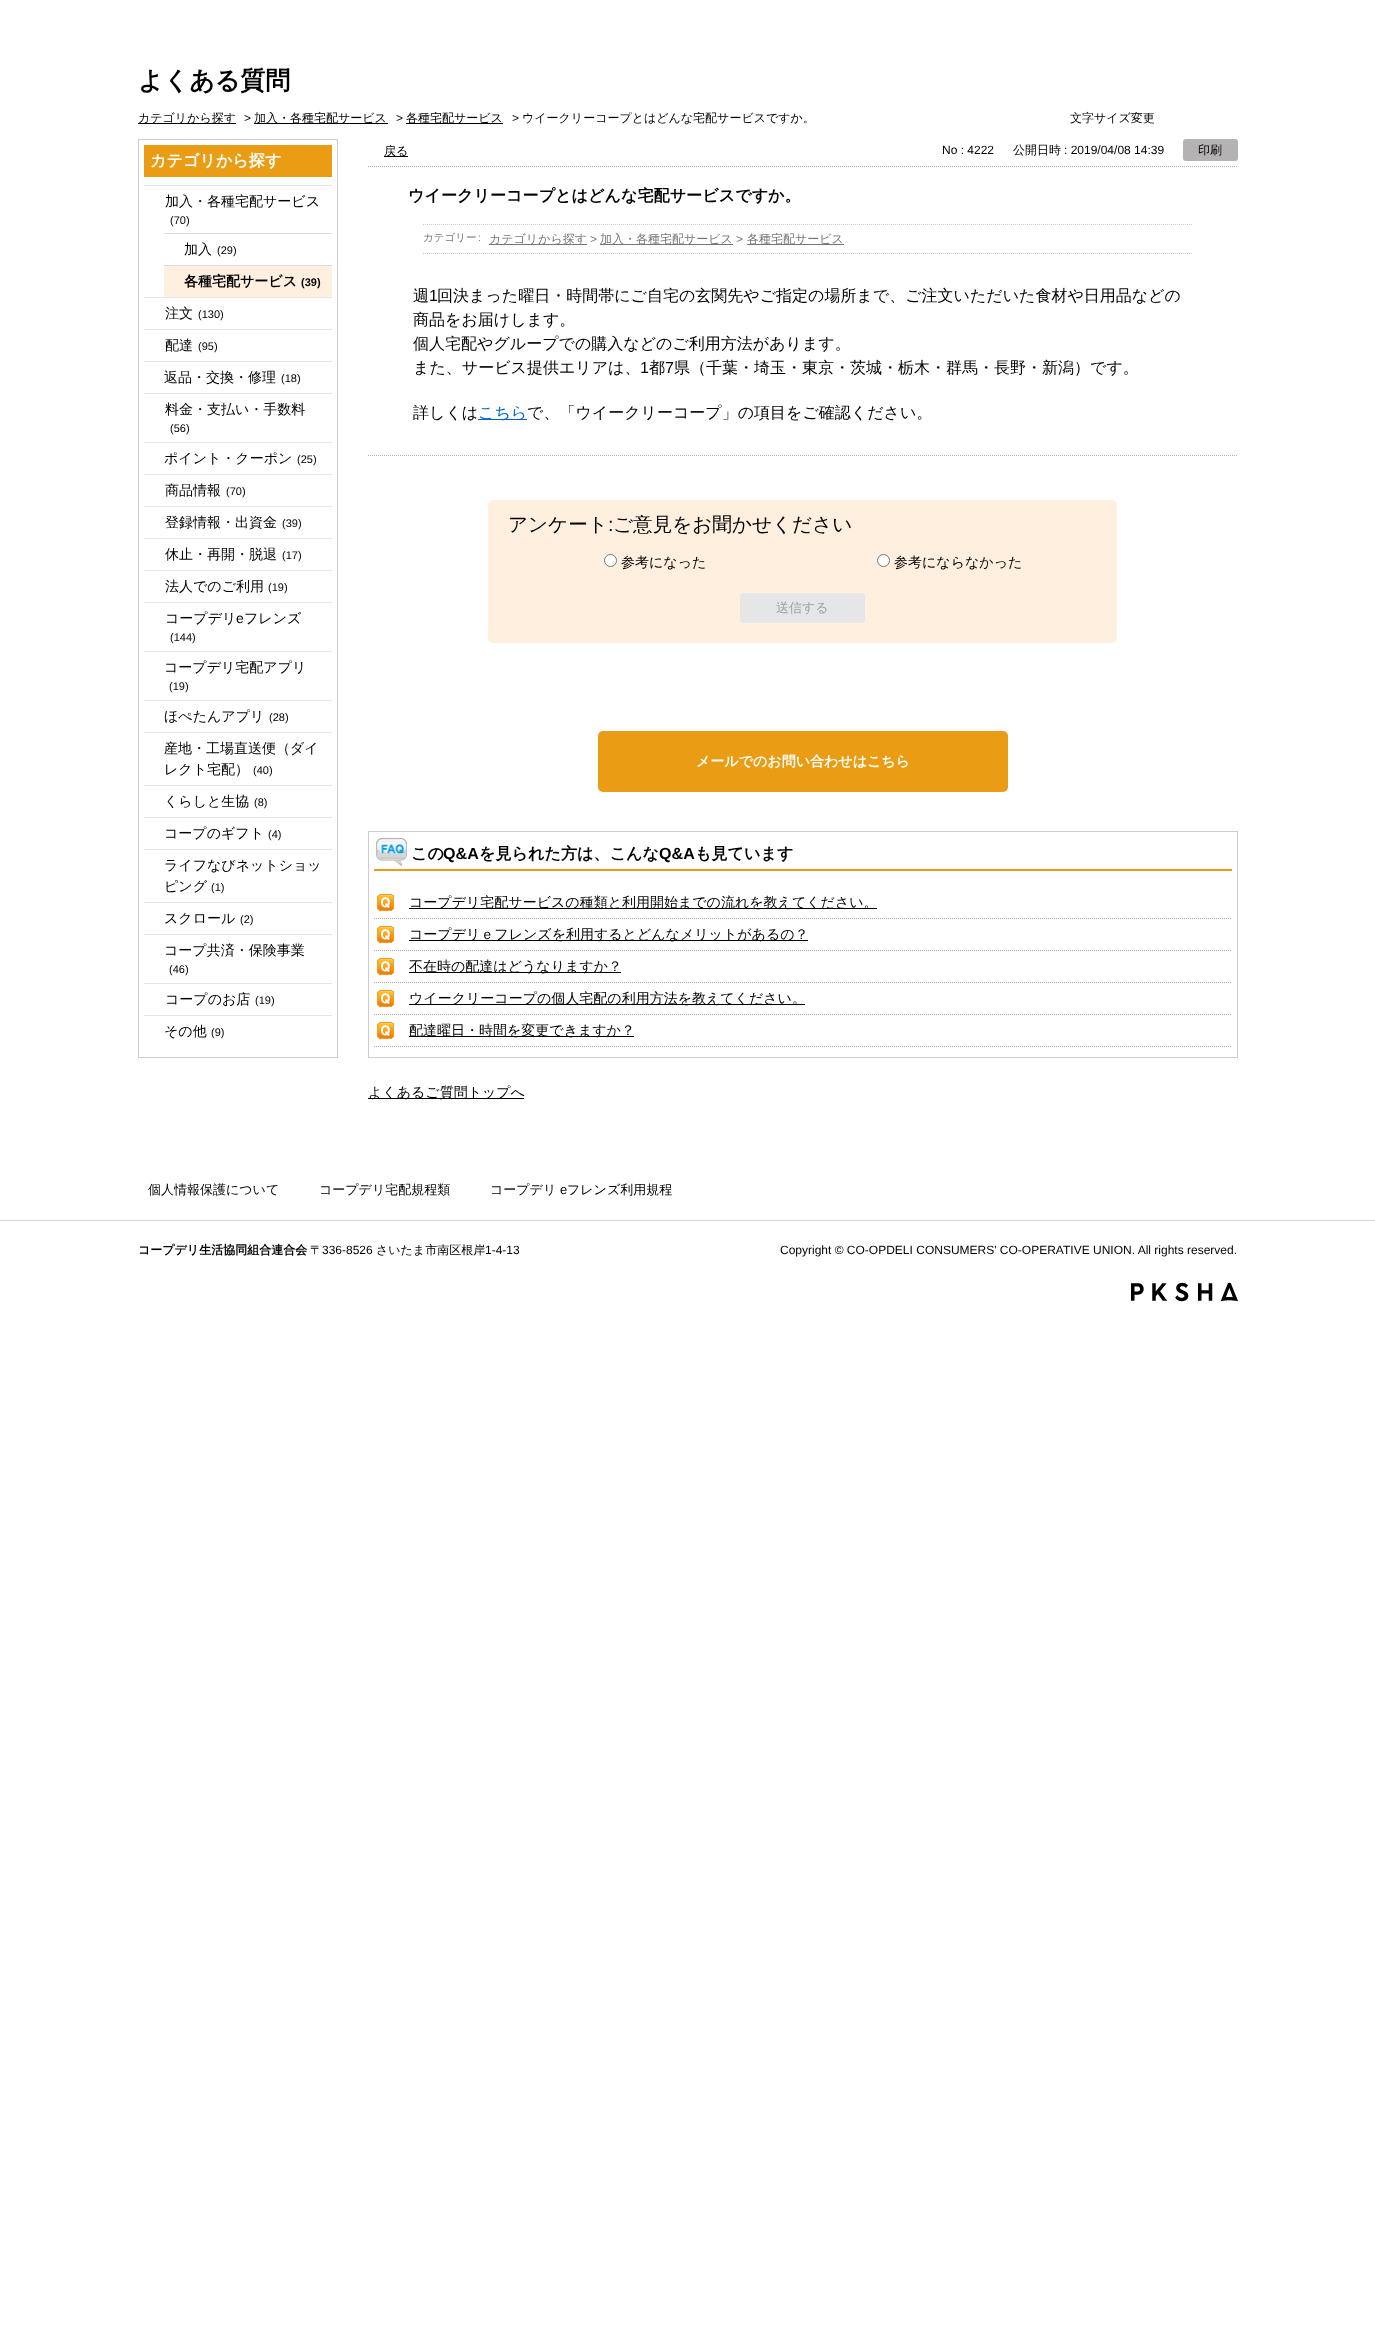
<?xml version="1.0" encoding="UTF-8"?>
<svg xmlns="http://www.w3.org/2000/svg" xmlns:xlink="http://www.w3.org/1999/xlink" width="1375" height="2332">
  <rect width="100%" height="100%" fill="#ffffff" />
  <rect x="138" y="123" width="98" height="1" fill="#000000" />
  <rect x="254" y="123" width="134" height="1" fill="#000000" />
  <rect x="406" y="123" width="97" height="1" fill="#000000" />
  <rect x="138.5" y="139.5" width="199" height="918" fill="none" stroke="#cccccc" />
  <rect x="144" y="145" width="188" height="32" fill="#e99c14" />
  <rect x="144" y="185" width="188" height="1" fill="#e6e6e6" />
  <rect x="164" y="233" width="168" height="1" fill="#dcdcdc" />
  <rect x="164" y="265" width="168" height="1" fill="#dcdcdc" />
  <rect x="164" y="266" width="168" height="31" fill="#ffefdf" />
  <rect x="144" y="297" width="188" height="1" fill="#e6e6e6" />
  <rect x="144" y="329" width="188" height="1" fill="#e6e6e6" />
  <rect x="144" y="361" width="188" height="1" fill="#e6e6e6" />
  <rect x="144" y="393" width="188" height="1" fill="#e6e6e6" />
  <rect x="144" y="442" width="188" height="1" fill="#e6e6e6" />
  <rect x="144" y="474" width="188" height="1" fill="#e6e6e6" />
  <rect x="144" y="506" width="188" height="1" fill="#e6e6e6" />
  <rect x="144" y="538" width="188" height="1" fill="#e6e6e6" />
  <rect x="144" y="570" width="188" height="1" fill="#e6e6e6" />
  <rect x="144" y="602" width="188" height="1" fill="#e6e6e6" />
  <rect x="144" y="651" width="188" height="1" fill="#e6e6e6" />
  <rect x="144" y="700" width="188" height="1" fill="#e6e6e6" />
  <rect x="144" y="732" width="188" height="1" fill="#e6e6e6" />
  <rect x="144" y="785" width="188" height="1" fill="#e6e6e6" />
  <rect x="144" y="817" width="188" height="1" fill="#e6e6e6" />
  <rect x="144" y="849" width="188" height="1" fill="#e6e6e6" />
  <rect x="144" y="902" width="188" height="1" fill="#e6e6e6" />
  <rect x="144" y="934" width="188" height="1" fill="#e6e6e6" />
  <rect x="144" y="983" width="188" height="1" fill="#e6e6e6" />
  <rect x="144" y="1015" width="188" height="1" fill="#e6e6e6" />
  <path d="M 368 166.5 h 870" fill="none" stroke="#b4b4b4" stroke-dasharray="1 1" />
  <rect x="384" y="156" width="24" height="1" fill="#000000" />
  <rect x="1183" y="139" width="55" height="22" rx="3" fill="#b4b2b2" />
  <path d="M 423 224.5 h 770" fill="none" stroke="#cccccc" stroke-dasharray="1 1" />
  <path d="M 423 253.5 h 770" fill="none" stroke="#cccccc" stroke-dasharray="1 1" />
  <rect x="489" y="244" width="98" height="1" fill="#767676" />
  <rect x="600" y="244" width="133" height="1" fill="#767676" />
  <rect x="747" y="244" width="97" height="1" fill="#767676" />
  <path d="M 368 455.5 h 870" fill="none" stroke="#b4b4b4" stroke-dasharray="1 1" />
  <rect x="478" y="419" width="49" height="1" fill="#0066cc" />
  <rect x="488" y="500" width="629" height="143" rx="5" fill="#ffefdf" />
  <circle cx="610.5" cy="560.5" r="6" fill="#ffffff" stroke="#767676" />
  <circle cx="883.5" cy="560.5" r="6" fill="#ffffff" stroke="#767676" />
  <rect x="740" y="593" width="125" height="30" rx="3" fill="#e6e6e6" />
  <rect x="598" y="731" width="410" height="61" rx="5" fill="#e99c14" />
  <rect x="368.5" y="831.5" width="869" height="226" fill="none" stroke="#cccccc" />
  <rect x="374" y="869" width="858" height="2" fill="#e99c14" />
  <image x="376" y="838" width="31" height="28" xlink:href="image1.png" />
  <image x="377" y="894" width="17" height="17" xlink:href="image2.png" />
  <path d="M 374 918.5 h 858" fill="none" stroke="#b2b2b2" stroke-dasharray="1 1" />
  <rect x="409" y="908" width="468" height="1" fill="#000000" />
  <image x="377" y="926" width="17" height="17" xlink:href="image2.png" />
  <path d="M 374 950.5 h 858" fill="none" stroke="#b2b2b2" stroke-dasharray="1 1" />
  <rect x="409" y="940" width="399" height="1" fill="#000000" />
  <image x="377" y="958" width="17" height="17" xlink:href="image2.png" />
  <path d="M 374 982.5 h 858" fill="none" stroke="#b2b2b2" stroke-dasharray="1 1" />
  <rect x="409" y="972" width="212" height="1" fill="#000000" />
  <image x="377" y="990" width="17" height="17" xlink:href="image2.png" />
  <path d="M 374 1014.5 h 858" fill="none" stroke="#b2b2b2" stroke-dasharray="1 1" />
  <rect x="409" y="1004" width="396" height="1" fill="#000000" />
  <image x="377" y="1022" width="17" height="17" xlink:href="image2.png" />
  <path d="M 374 1046.5 h 858" fill="none" stroke="#b2b2b2" stroke-dasharray="1 1" />
  <rect x="409" y="1036" width="225" height="1" fill="#000000" />
  <rect x="368" y="1098" width="156" height="1" fill="#000000" />
  <rect y="1220" width="1375" height="1" fill="#d9d9d9" />
  <image x="1131" y="1282" width="107" height="20" xlink:href="image3.png" />
  <text x="138" y="89" style="font-family: WenQuanYi Zen Hei; font-size: 25px; font-weight: bold; fill: #000000">よくある質問</text>
  <text x="138" y="122" style="font-family: WenQuanYi Zen Hei; font-size: 12px; font-weight: 500; fill: #000000">カテゴリから探す</text>
  <text x="244" y="122" style="font-family: Liberation Sans; font-size: 12px; fill: #000000">&gt;</text>
  <text x="254" y="122" style="font-family: WenQuanYi Zen Hei; font-size: 12px; font-weight: 500; fill: #000000">加入・各種宅配サービス</text>
  <text x="396" y="122" style="font-family: Liberation Sans; font-size: 12px; fill: #000000">&gt;</text>
  <text x="406" y="122" style="font-family: WenQuanYi Zen Hei; font-size: 12px; font-weight: 500; fill: #000000">各種宅配サービス</text>
  <text x="512" y="122" style="font-family: Liberation Sans; font-size: 12px; fill: #000000">&gt;</text>
  <text x="522" y="122" style="font-family: WenQuanYi Zen Hei; font-size: 12px; font-weight: 500; fill: #000000">ウイークリーコープとはどんな宅配サービスですか。</text>
  <text x="1070" y="122" style="font-family: WenQuanYi Zen Hei; font-size: 12px; font-weight: 500; fill: #000000">文字サイズ変更</text>
  <text x="150" y="166" style="font-family: WenQuanYi Zen Hei; font-size: 16.1px; font-weight: bold; fill: #ffffff">カテゴリから探す</text>
  <text x="165" y="206" style="font-family: WenQuanYi Zen Hei; font-size: 14px; font-weight: 500; fill: #000000">加入・各種宅配サービス</text>
  <text x="170" y="224" style="font-family: Liberation Sans; font-size: 11px; fill: #000000">(70)</text>
  <text x="184" y="254" style="font-family: WenQuanYi Zen Hei; font-size: 14px; font-weight: 500; fill: #000000">加入</text>
  <text x="217" y="254" style="font-family: Liberation Sans; font-size: 11px; fill: #000000">(29)</text>
  <text x="184" y="286" style="font-family: WenQuanYi Zen Hei; font-size: 14px; font-weight: bold; fill: #000000">各種宅配サービス</text>
  <text x="301" y="286" style="font-family: Liberation Sans; font-size: 11px; font-weight: bold; fill: #000000">(39)</text>
  <text x="165" y="318" style="font-family: WenQuanYi Zen Hei; font-size: 14px; font-weight: 500; fill: #000000">注文</text>
  <text x="198" y="318" style="font-family: Liberation Sans; font-size: 11px; fill: #000000">(130)</text>
  <text x="165" y="350" style="font-family: WenQuanYi Zen Hei; font-size: 14px; font-weight: 500; fill: #000000">配達</text>
  <text x="198" y="350" style="font-family: Liberation Sans; font-size: 11px; fill: #000000">(95)</text>
  <text x="164" y="382" style="font-family: WenQuanYi Zen Hei; font-size: 14px; font-weight: 500; fill: #000000">返品・交換・修理</text>
  <text x="281" y="382" style="font-family: Liberation Sans; font-size: 11px; fill: #000000">(18)</text>
  <text x="165" y="414" style="font-family: WenQuanYi Zen Hei; font-size: 14px; font-weight: 500; fill: #000000">料金・支払い・手数料</text>
  <text x="170" y="432" style="font-family: Liberation Sans; font-size: 11px; fill: #000000">(56)</text>
  <text x="164" y="463" style="font-family: WenQuanYi Zen Hei; font-size: 14px; font-weight: 500; fill: #000000">ポイント・クーポン</text>
  <text x="297" y="463" style="font-family: Liberation Sans; font-size: 11px; fill: #000000">(25)</text>
  <text x="165" y="495" style="font-family: WenQuanYi Zen Hei; font-size: 14px; font-weight: 500; fill: #000000">商品情報</text>
  <text x="226" y="495" style="font-family: Liberation Sans; font-size: 11px; fill: #000000">(70)</text>
  <text x="165" y="527" style="font-family: WenQuanYi Zen Hei; font-size: 14px; font-weight: 500; fill: #000000">登録情報・出資金</text>
  <text x="282" y="527" style="font-family: Liberation Sans; font-size: 11px; fill: #000000">(39)</text>
  <text x="165" y="559" style="font-family: WenQuanYi Zen Hei; font-size: 14px; font-weight: 500; fill: #000000">休止・再開・脱退</text>
  <text x="282" y="559" style="font-family: Liberation Sans; font-size: 11px; fill: #000000">(17)</text>
  <text x="165" y="591" style="font-family: WenQuanYi Zen Hei; font-size: 14px; font-weight: 500; fill: #000000">法人でのご利用</text>
  <text x="268" y="591" style="font-family: Liberation Sans; font-size: 11px; fill: #000000">(19)</text>
  <text x="165" y="623" style="font-family: WenQuanYi Zen Hei; font-size: 14px; font-weight: 500; fill: #000000">コープデリ</text>
  <text x="236" y="623" style="font-family: Liberation Sans; font-size: 14px; fill: #000000">e</text>
  <text x="244" y="623" style="font-family: WenQuanYi Zen Hei; font-size: 14px; font-weight: 500; fill: #000000">フレンズ</text>
  <text x="170" y="641" style="font-family: Liberation Sans; font-size: 11px; fill: #000000">(144)</text>
  <text x="164" y="672" style="font-family: WenQuanYi Zen Hei; font-size: 14px; font-weight: 500; fill: #000000">コープデリ宅配アプリ</text>
  <text x="169" y="690" style="font-family: Liberation Sans; font-size: 11px; fill: #000000">(19)</text>
  <text x="164" y="721" style="font-family: WenQuanYi Zen Hei; font-size: 14px; font-weight: 500; fill: #000000">ほぺたんアプリ</text>
  <text x="269" y="721" style="font-family: Liberation Sans; font-size: 11px; fill: #000000">(28)</text>
  <text x="164" y="753" style="font-family: WenQuanYi Zen Hei; font-size: 14px; font-weight: 500; fill: #000000">産地・工場直送便（ダイ</text>
  <text x="164" y="774" style="font-family: WenQuanYi Zen Hei; font-size: 14px; font-weight: 500; fill: #000000">レクト宅配）</text>
  <text x="253" y="774" style="font-family: Liberation Sans; font-size: 11px; fill: #000000">(40)</text>
  <text x="164" y="806" style="font-family: WenQuanYi Zen Hei; font-size: 14px; font-weight: 500; fill: #000000">くらしと生協</text>
  <text x="254" y="806" style="font-family: Liberation Sans; font-size: 11px; fill: #000000">(8)</text>
  <text x="164" y="838" style="font-family: WenQuanYi Zen Hei; font-size: 14px; font-weight: 500; fill: #000000">コープのギフト</text>
  <text x="268" y="838" style="font-family: Liberation Sans; font-size: 11px; fill: #000000">(4)</text>
  <text x="164" y="870" style="font-family: WenQuanYi Zen Hei; font-size: 14px; font-weight: 500; fill: #000000">ライフなびネットショッ</text>
  <text x="164" y="891" style="font-family: WenQuanYi Zen Hei; font-size: 14px; font-weight: 500; fill: #000000">ピング</text>
  <text x="211" y="891" style="font-family: Liberation Sans; font-size: 11px; fill: #000000">(1)</text>
  <text x="164" y="923" style="font-family: WenQuanYi Zen Hei; font-size: 14px; font-weight: 500; fill: #000000">スクロール</text>
  <text x="240" y="923" style="font-family: Liberation Sans; font-size: 11px; fill: #000000">(2)</text>
  <text x="164" y="955" style="font-family: WenQuanYi Zen Hei; font-size: 14px; font-weight: 500; fill: #000000">コープ共済・保険事業</text>
  <text x="169" y="973" style="font-family: Liberation Sans; font-size: 11px; fill: #000000">(46)</text>
  <text x="165" y="1004" style="font-family: WenQuanYi Zen Hei; font-size: 14px; font-weight: 500; fill: #000000">コープのお店</text>
  <text x="255" y="1004" style="font-family: Liberation Sans; font-size: 11px; fill: #000000">(19)</text>
  <text x="164" y="1036" style="font-family: WenQuanYi Zen Hei; font-size: 14px; font-weight: 500; fill: #000000">その他</text>
  <text x="211" y="1036" style="font-family: Liberation Sans; font-size: 11px; fill: #000000">(9)</text>
  <text x="384" y="155" style="font-family: WenQuanYi Zen Hei; font-size: 12px; font-weight: 500; fill: #000000">戻る</text>
  <text x="942" y="154" style="font-family: Liberation Sans; font-size: 12px; fill: #000000">No : 4222</text>
  <text x="1013" y="154" style="font-family: WenQuanYi Zen Hei; font-size: 12px; font-weight: 500; fill: #000000">公開日時</text>
  <text x="1064" y="154" style="font-family: Liberation Sans; font-size: 12px; fill: #000000">: 2019/04/08 14:39</text>
  <text x="1198" y="154" style="font-family: WenQuanYi Zen Hei; font-size: 12px; font-weight: 500; fill: #000000">印刷</text>
  <text x="408" y="201" style="font-family: WenQuanYi Zen Hei; font-size: 16.1px; font-weight: bold; fill: #000000">ウイークリーコープとはどんな宅配サービスですか。</text>
  <text x="423" y="241" style="font-family: WenQuanYi Zen Hei; font-size: 10.5px; font-weight: 500; fill: #767676">カテゴリー</text>
  <text x="478" y="241" style="font-family: Liberation Sans; font-size: 10.5px; fill: #767676">:</text>
  <text x="489" y="243" style="font-family: WenQuanYi Zen Hei; font-size: 12px; font-weight: 500; fill: #767676">カテゴリから探す</text>
  <text x="590" y="243" style="font-family: Liberation Sans; font-size: 12px; fill: #767676">&gt;</text>
  <text x="600" y="243" style="font-family: WenQuanYi Zen Hei; font-size: 12px; font-weight: 500; fill: #767676">加入・各種宅配サービス</text>
  <text x="736" y="243" style="font-family: Liberation Sans; font-size: 12px; fill: #767676">&gt;</text>
  <text x="747" y="243" style="font-family: WenQuanYi Zen Hei; font-size: 12px; font-weight: 500; fill: #767676">各種宅配サービス</text>
  <text x="413" y="301" style="font-family: WenQuanYi Zen Hei; font-size: 16px; font-weight: 500; fill: #000000">週</text>
  <text x="429" y="301" style="font-family: Liberation Sans; font-size: 16px; fill: #000000">1</text>
  <text x="437" y="301" style="font-family: WenQuanYi Zen Hei; font-size: 16px; font-weight: 500; fill: #000000">回決まった曜日・時間帯にご自宅の玄関先やご指定の場所まで、ご注文いただいた食材や日用品などの</text>
  <text x="413" y="325" style="font-family: WenQuanYi Zen Hei; font-size: 16px; font-weight: 500; fill: #000000">商品をお届けします。</text>
  <text x="413" y="349" style="font-family: WenQuanYi Zen Hei; font-size: 16px; font-weight: 500; fill: #000000">個人宅配やグループでの購入などのご利用方法があります。</text>
  <text x="413" y="373" style="font-family: WenQuanYi Zen Hei; font-size: 16px; font-weight: 500; fill: #000000">また、サービス提供エリアは、</text>
  <text x="640" y="373" style="font-family: Liberation Sans; font-size: 16px; fill: #000000">1</text>
  <text x="649" y="373" style="font-family: WenQuanYi Zen Hei; font-size: 16px; font-weight: 500; fill: #000000">都</text>
  <text x="665" y="373" style="font-family: Liberation Sans; font-size: 16px; fill: #000000">7</text>
  <text x="674" y="373" style="font-family: WenQuanYi Zen Hei; font-size: 16px; font-weight: 500; fill: #000000">県（千葉・埼玉・東京・茨城・栃木・群馬・長野・新潟）です。</text>
  <text x="413" y="418" style="font-family: WenQuanYi Zen Hei; font-size: 16px; font-weight: 500; fill: #000000">詳しくは</text>
  <text x="478" y="418" style="font-family: WenQuanYi Zen Hei; font-size: 16px; font-weight: 500; fill: #0066cc">こちら</text>
  <text x="527" y="418" style="font-family: WenQuanYi Zen Hei; font-size: 16px; font-weight: 500; fill: #000000">で、「ウイークリーコープ」の項目をご確認ください。</text>
  <text x="508" y="531" style="font-family: WenQuanYi Zen Hei; font-size: 19.6px; font-weight: 500; fill: #000000">アンケート</text>
  <text x="608" y="531" style="font-family: Liberation Sans; font-size: 19.6px; fill: #000000">:</text>
  <text x="613" y="531" style="font-family: WenQuanYi Zen Hei; font-size: 19.6px; font-weight: 500; fill: #000000">ご意見をお聞かせください</text>
  <text x="621" y="567" style="font-family: WenQuanYi Zen Hei; font-size: 14px; font-weight: 500; fill: #000000">参考になった</text>
  <text x="894" y="567" style="font-family: WenQuanYi Zen Hei; font-size: 14px; font-weight: 500; fill: #000000">参考にならなかった</text>
  <text x="776" y="612" style="font-family: WenQuanYi Zen Hei; font-size: 13px; font-weight: 500; fill: #a0a0a0">送信する</text>
  <text x="696" y="766" style="font-family: WenQuanYi Zen Hei; font-size: 14px; font-weight: bold; fill: #ffffff">メールでのお問い合わせはこちら</text>
  <text x="411" y="859" style="font-family: WenQuanYi Zen Hei; font-size: 16.1px; font-weight: bold; fill: #000000">この</text>
  <text x="443" y="859" style="font-family: Liberation Sans; font-size: 16.1px; font-weight: bold; fill: #000000">Q&amp;A</text>
  <text x="479" y="859" style="font-family: WenQuanYi Zen Hei; font-size: 16.1px; font-weight: bold; fill: #000000">を見られた方は、こんな</text>
  <text x="659" y="859" style="font-family: Liberation Sans; font-size: 16.1px; font-weight: bold; fill: #000000">Q&amp;A</text>
  <text x="695" y="859" style="font-family: WenQuanYi Zen Hei; font-size: 16.1px; font-weight: bold; fill: #000000">も見ています</text>
  <text x="409" y="907" style="font-family: WenQuanYi Zen Hei; font-size: 14px; font-weight: 500; fill: #000000">コープデリ宅配サービスの種類と利用開始までの流れを教えてください。</text>
  <text x="409" y="939" style="font-family: WenQuanYi Zen Hei; font-size: 14px; font-weight: 500; fill: #000000">コープデリｅフレンズを利用するとどんなメリットがあるの？</text>
  <text x="409" y="971" style="font-family: WenQuanYi Zen Hei; font-size: 14px; font-weight: 500; fill: #000000">不在時の配達はどうなりますか？</text>
  <text x="409" y="1003" style="font-family: WenQuanYi Zen Hei; font-size: 14px; font-weight: 500; fill: #000000">ウイークリーコープの個人宅配の利用方法を教えてください。</text>
  <text x="409" y="1035" style="font-family: WenQuanYi Zen Hei; font-size: 14px; font-weight: 500; fill: #000000">配達曜日・時間を変更できますか？</text>
  <text x="368" y="1097" style="font-family: WenQuanYi Zen Hei; font-size: 14px; font-weight: 500; fill: #000000">よくあるご質問トップへ</text>
  <text x="148" y="1194" style="font-family: WenQuanYi Zen Hei; font-size: 13px; font-weight: 500; fill: #000000">個人情報保護について</text>
  <text x="319" y="1194" style="font-family: WenQuanYi Zen Hei; font-size: 13px; font-weight: 500; fill: #000000">コープデリ宅配規程類</text>
  <text x="490" y="1194" style="font-family: WenQuanYi Zen Hei; font-size: 13px; font-weight: 500; fill: #000000">コープデリ</text>
  <text x="560" y="1194" style="font-family: Liberation Sans; font-size: 13px; fill: #000000">e</text>
  <text x="567" y="1194" style="font-family: WenQuanYi Zen Hei; font-size: 13px; font-weight: 500; fill: #000000">フレンズ利用規程</text>
  <text x="138" y="1254" style="font-family: WenQuanYi Zen Hei; font-size: 12px; font-weight: bold; fill: #000000">コープデリ⽣活協同組合連合会</text>
  <text x="310" y="1254" style="font-family: WenQuanYi Zen Hei; font-size: 12px; font-weight: 500; fill: #000000">〒</text>
  <text x="322" y="1254" style="font-family: Liberation Sans; font-size: 12px; fill: #000000">336-8526</text>
  <text x="376" y="1254" style="font-family: WenQuanYi Zen Hei; font-size: 12px; font-weight: 500; fill: #000000">さいたま市南区根岸</text>
  <text x="485" y="1254" style="font-family: Liberation Sans; font-size: 12px; fill: #000000">1-4-13</text>
  <text x="780" y="1254" style="font-family: Liberation Sans; font-size: 12px; fill: #000000">Copyright © CO-OPDELI CONSUMERS' CO-OPERATIVE UNION. All rights reserved.</text>
</svg>
